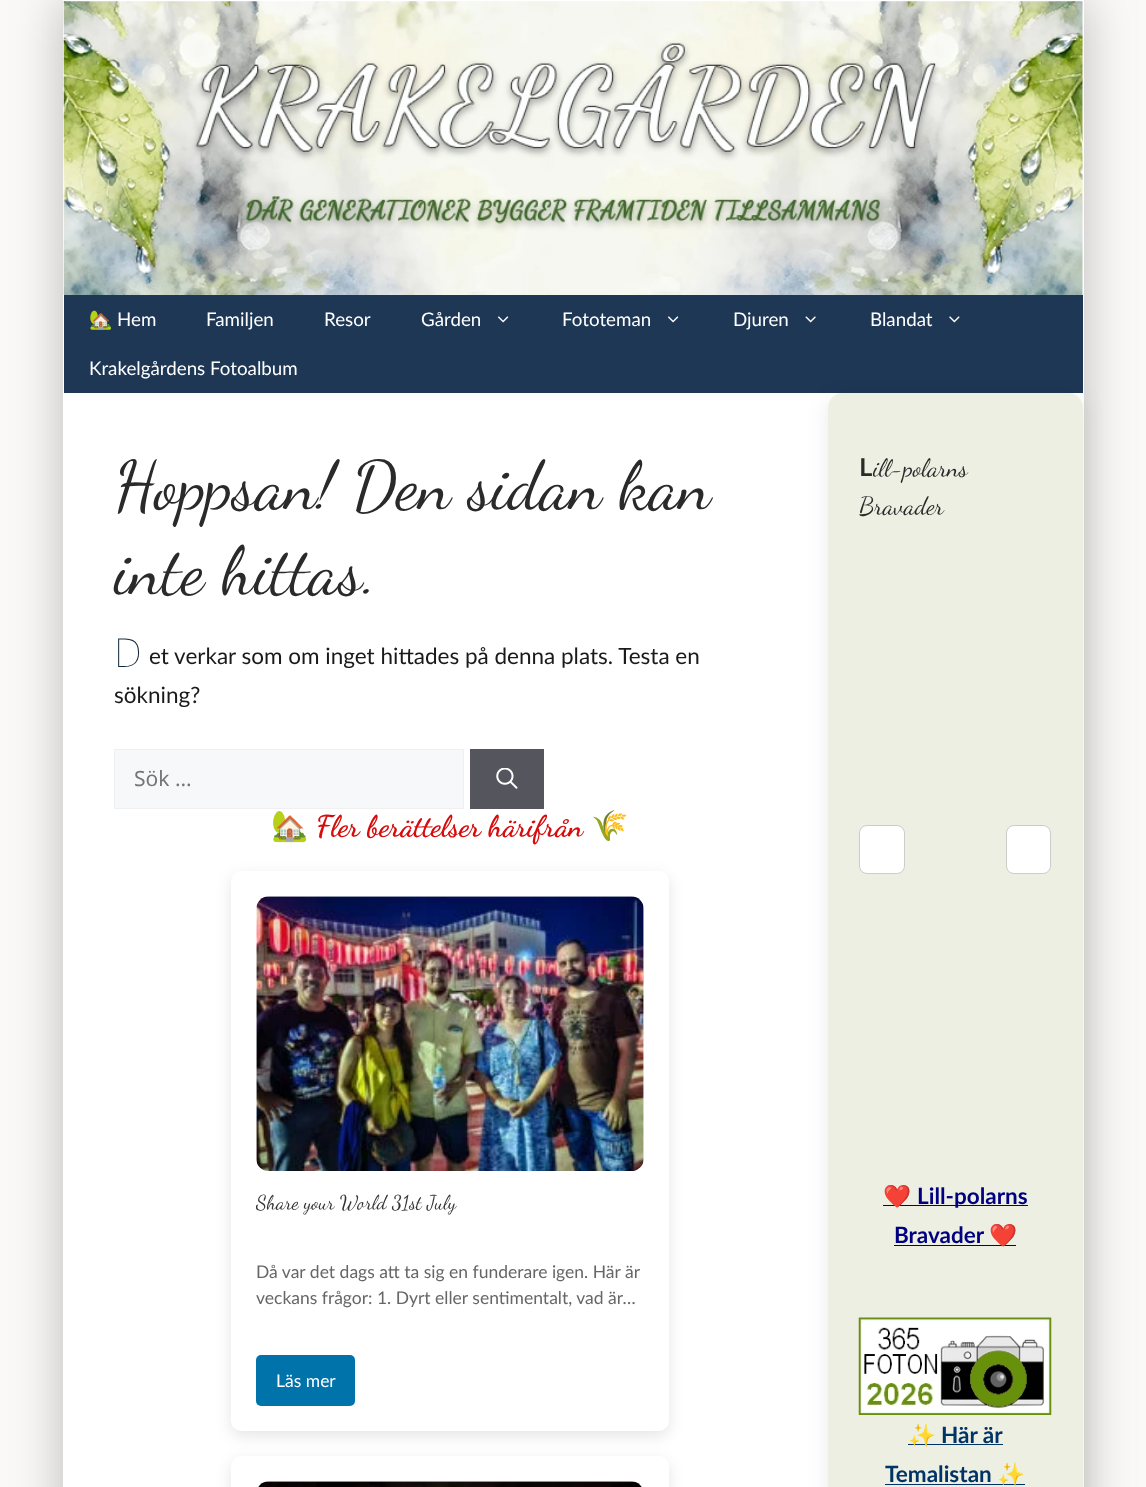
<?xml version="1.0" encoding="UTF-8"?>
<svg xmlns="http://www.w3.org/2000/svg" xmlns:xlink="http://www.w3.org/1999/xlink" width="1146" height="1487">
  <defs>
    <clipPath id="clip1"><rect x="256" y="1190" width="388" height="55" /></clipPath>
  </defs>
  <rect width="100%" height="100%" fill="#faf9f7" />
  <rect x="63" width="1021" height="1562" fill="#000000" fill-opacity="0.25" filter="blur(25px)" />
  <rect x="63" width="1021" height="1487" fill="#ffffff" />
  <image x="63" y="1" width="1020" height="294" xlink:href="image1.png" />
  <rect x="64" y="295" width="1019" height="98" fill="#1d3754" />
  <image x="498" y="316" width="11" height="7" xlink:href="image2.png" />
  <image x="668" y="316" width="11" height="7" xlink:href="image2.png" />
  <image x="805" y="316" width="11" height="7" xlink:href="image3.png" />
  <image x="949" y="316" width="11" height="7" xlink:href="image4.png" />
  <rect x="114.5" y="749.5" width="349" height="59" fill="#f7f8f9" stroke="#f0f0f0" />
  <rect x="470" y="749" width="74" height="60" fill="#55555e" />
  <image x="496" y="768" width="22" height="21" xlink:href="image5.png" />
  <rect x="231" y="876" width="438" height="560" rx="10" fill="#000000" fill-opacity="0.1" filter="blur(7.5px)" />
  <rect x="231" y="871" width="438" height="560" rx="10" fill="#ffffff" />
  <image x="256" y="896" width="388" height="275" xlink:href="image6.png" />
  <rect x="256" y="1355" width="99" height="51" rx="5" fill="#0073aa" />
  <rect x="231" y="1461" width="438" height="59" rx="10" fill="#000000" fill-opacity="0.1" filter="blur(7.5px)" />
  <rect x="231" y="1456" width="438" height="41" rx="10" fill="#ffffff" />
  <image x="258" y="1481" width="384" height="6" xlink:href="image7.png" />
  <rect x="828" y="398" width="255" height="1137" rx="15" fill="#000000" fill-opacity="0.08" filter="blur(11px)" />
  <rect x="828" y="393" width="255" height="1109" rx="15" fill="#edefe2" />
  <rect x="859.5" y="825.5" width="45" height="48" rx="7.5" fill="#ffffff" stroke="#cccccc" />
  <rect x="1006.5" y="825.5" width="44" height="48" rx="7.5" fill="#ffffff" stroke="#cccccc" />
  <rect x="883" y="1205" width="145" height="1" fill="#000080" />
  <rect x="894" y="1245" width="122" height="1" fill="#000080" />
  <image x="858" y="1317" width="194" height="98" xlink:href="image8.png" />
  <rect x="908" y="1444" width="95" height="1" fill="#003366" />
  <rect x="885" y="1484" width="140" height="1" fill="#003366" />
  <text x="89" y="326" style="font-family: Noto Color Emoji; font-size: 18.75px; fill: #ffffff">🏡</text>
  <text x="117" y="326" style="font-family: Lato; font-size: 18.75px; fill: #ffffff">Hem</text>
  <text x="206" y="326" style="font-family: Lato; font-size: 18.75px; fill: #ffffff">Familjen</text>
  <text x="324" y="326" style="font-family: Lato; font-size: 18.75px; fill: #ffffff">Resor</text>
  <text x="421" y="326" style="font-family: Lato; font-size: 18.75px; fill: #ffffff">Gården</text>
  <text x="562" y="326" style="font-family: Lato; font-size: 18.75px; fill: #ffffff">Fototeman</text>
  <text x="733" y="326" style="font-family: Lato; font-size: 18.75px; fill: #ffffff">Djuren</text>
  <text x="870" y="326" style="font-family: Lato; font-size: 18.75px; fill: #ffffff">Blandat</text>
  <text x="89" y="375" style="font-family: Lato; font-size: 18.75px; fill: #ffffff">Krakelgårdens Fotoalbum</text>
  <text x="114" y="508" style="font-family: Dancing Script; font-size: 68px; fill: #2a2a2a">Hoppsan! Den sidan kan</text>
  <text x="114" y="593" style="font-family: Dancing Script; font-size: 68px; fill: #2a2a2a">inte hittas.</text>
  <text x="114" y="667" style="font-family: Noto Sans; font-size: 40px; font-weight: 100; fill: #11273a">D</text>
  <text x="149" y="664" style="font-family: Lato; font-size: 22.5px; fill: #1a1a1a">et verkar som om inget hittades på denna plats. Testa en</text>
  <text x="114" y="703" style="font-family: Lato; font-size: 22.5px; fill: #1a1a1a">sökning?</text>
  <text x="134" y="786" style="font-family: Noto Sans; font-size: 21px; fill: #757575">Sök …</text>
  <text x="271" y="836" style="font-family: Noto Color Emoji; font-size: 30px; font-weight: bold; fill: #d60c0c">🏡</text>
  <text x="316" y="836" style="font-family: Dancing Script; font-size: 30px; font-weight: bold; fill: #d60c0c">Fler berättelser härifrån</text>
  <text x="591" y="836" style="font-family: Noto Color Emoji; font-size: 30px; font-weight: bold; fill: #d60c0c">🌾</text>
  <g clip-path="url(#clip1)">
    <text x="256" y="1209" style="font-family: Dancing Script; font-size: 20px; fill: #333333">Share your World 31st July</text>
  </g>
  <text x="256" y="1278" style="font-family: Lato; font-size: 17.5px; fill: #666666">Då var det dags att ta sig en funderare igen. Här är</text>
  <text x="256" y="1304" style="font-family: Lato; font-size: 17.5px; fill: #666666">veckans frågor: 1. Dyrt eller sentimentalt, vad är…</text>
  <text x="276" y="1387" style="font-family: Lato; font-size: 17.5px; fill: #ffffff">Läs mer</text>
  <text x="859" y="476" style="font-family: Noto Sans; font-size: 25px; font-weight: 600; fill: #2a2a2a">L</text>
  <text x="873" y="476" style="font-family: Dancing Script; font-size: 25px; fill: #2a2a2a">ill-polarns</text>
  <text x="859" y="514" style="font-family: Dancing Script; font-size: 25px; fill: #2a2a2a">Bravader</text>
  <text x="883" y="1204" style="font-family: Noto Color Emoji; font-size: 22.5px; font-weight: bold; fill: #000080">❤️</text>
  <text x="917" y="1204" style="font-family: Lato; font-size: 22.5px; font-weight: bold; fill: #000080">Lill-polarns</text>
  <text x="894" y="1243" style="font-family: Lato; font-size: 22.5px; font-weight: bold; fill: #000080">Bravader</text>
  <text x="989" y="1243" style="font-family: Noto Color Emoji; font-size: 22.5px; font-weight: bold; fill: #000080">❤️</text>
  <text x="908" y="1443" style="font-family: Noto Color Emoji; font-size: 22.5px; font-weight: bold; fill: #003366">✨</text>
  <text x="941" y="1443" style="font-family: Lato; font-size: 22.5px; font-weight: bold; fill: #003366">Här är</text>
  <text x="885" y="1482" style="font-family: Lato; font-size: 22.5px; font-weight: bold; fill: #003366">Temalistan</text>
  <text x="997" y="1482" style="font-family: Noto Color Emoji; font-size: 22.5px; font-weight: bold; fill: #003366">✨</text>
</svg>
